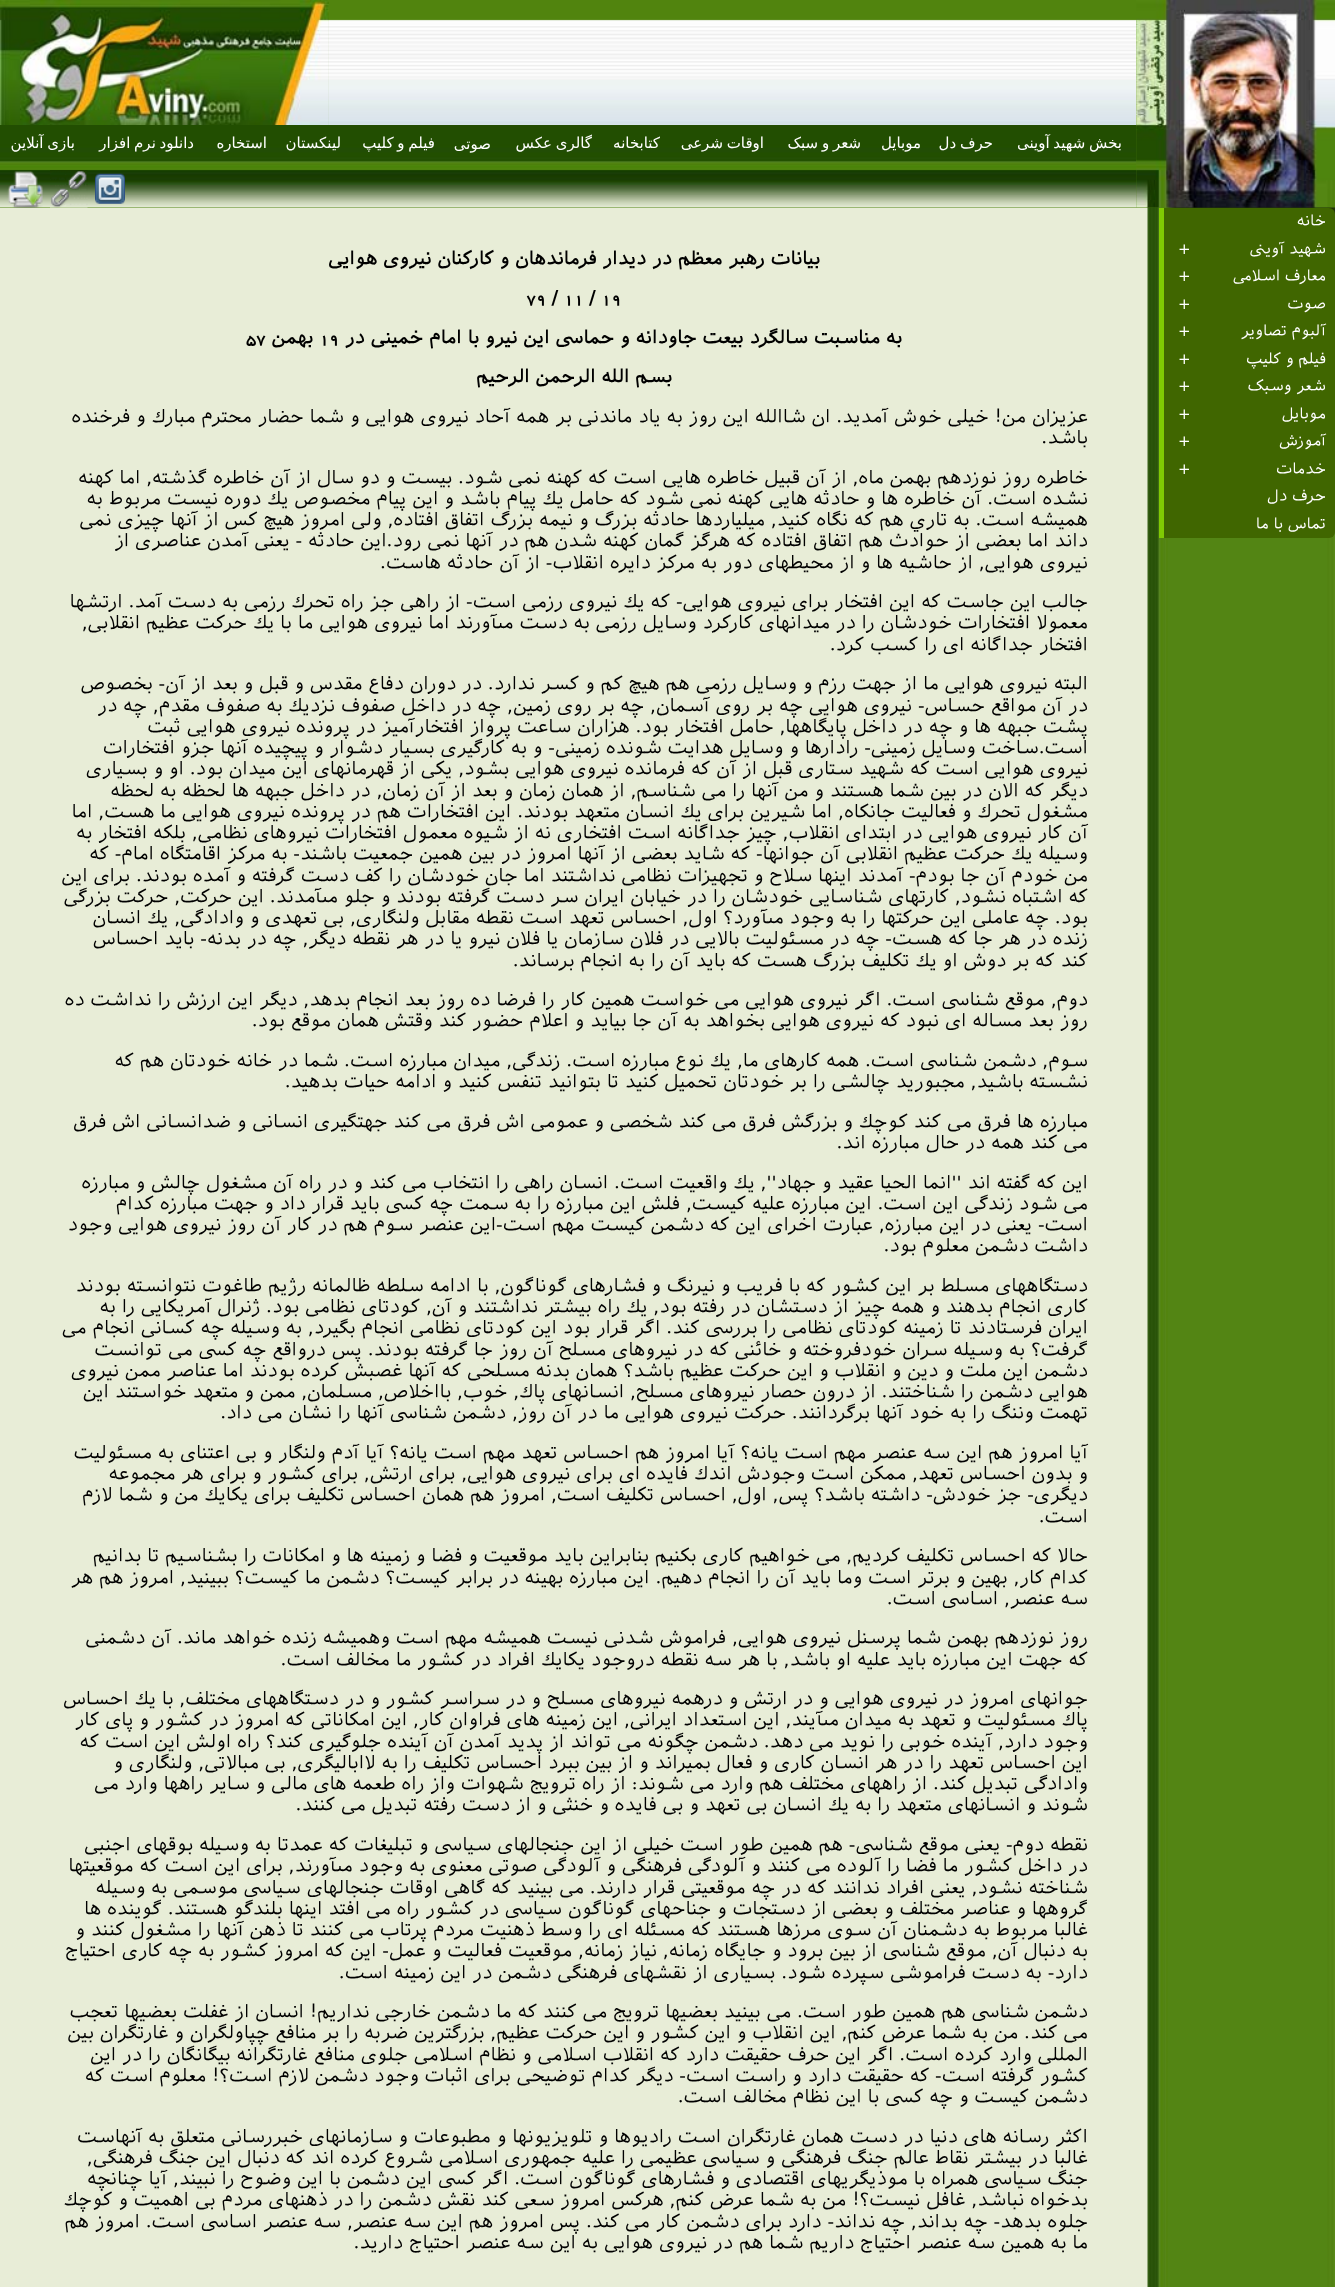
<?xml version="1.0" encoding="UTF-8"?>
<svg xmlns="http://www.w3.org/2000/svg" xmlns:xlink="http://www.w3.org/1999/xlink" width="1335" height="2287">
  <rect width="100%" height="100%" fill="#e8edd7" />
  <rect width="1335" height="208" fill="#538514" />
  <image x="328" y="0" width="809" height="125" xlink:href="image2.png" />
  <image x="0" y="125" width="1137" height="83" xlink:href="image5.png" />
  <image x="1147" y="207" width="188" height="2080" xlink:href="image9.png" />
  <rect x="1171" y="195" width="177" height="330" rx="6" fill="#000000" fill-opacity="0.6" filter="blur(3px)" />
  <image x="1136" y="0" width="199" height="208" xlink:href="image1.png" />
  <image x="328" y="0" width="1" height="125" xlink:href="image3.png" />
  <image x="0" y="0" width="329" height="125" xlink:href="image4.png" />
  <image x="95" y="173" width="30" height="31" xlink:href="image6.png" />
  <image x="50" y="170" width="38" height="38" xlink:href="image7.png" />
  <image x="7" y="171" width="36" height="37" xlink:href="image8.png" />
  <rect x="1159" y="208" width="176" height="330" rx="6" fill="#406600" />
  <rect x="1159" y="208" width="5" height="330" fill="#80ca03" />
  <text x="1122" y="148" word-spacing="-1" style="font-family: DejaVu Sans; font-size: 15px; direction: rtl; fill: #ffffff">بخش شهید آوینی</text>
  <text x="993" y="148" word-spacing="-1" style="font-family: DejaVu Sans; font-size: 15px; direction: rtl; fill: #ffffff">حرف دل</text>
  <text x="921" y="148" style="font-family: DejaVu Sans; font-size: 15px; direction: rtl; fill: #ffffff">موبایل</text>
  <text x="861" y="148" word-spacing="-1" style="font-family: DejaVu Sans; font-size: 15px; direction: rtl; fill: #ffffff">شعر و سبک</text>
  <text x="764" y="148" word-spacing="-1" style="font-family: DejaVu Sans; font-size: 15px; direction: rtl; fill: #ffffff">اوقات شرعی</text>
  <text x="660" y="148" style="font-family: DejaVu Sans; font-size: 15px; direction: rtl; fill: #ffffff">کتابخانه</text>
  <text x="592" y="148" word-spacing="-1" style="font-family: DejaVu Sans; font-size: 15px; direction: rtl; fill: #ffffff">گالری عکس</text>
  <text x="491" y="149" style="font-family: DejaVu Sans; font-size: 15px; direction: rtl; fill: #ffffff">صوتی</text>
  <text x="435" y="148" word-spacing="-1" style="font-family: DejaVu Sans; font-size: 15px; direction: rtl; fill: #ffffff">فیلم و کلیپ</text>
  <text x="341" y="148" style="font-family: DejaVu Sans; font-size: 15px; direction: rtl; fill: #ffffff">لینکستان</text>
  <text x="267" y="148" style="font-family: DejaVu Sans; font-size: 15px; direction: rtl; fill: #ffffff">استخاره</text>
  <text x="194" y="148" word-spacing="-1" style="font-family: DejaVu Sans; font-size: 15px; direction: rtl; fill: #ffffff">دانلود نرم افزار</text>
  <text x="75" y="148" word-spacing="-1" style="font-family: DejaVu Sans; font-size: 15px; direction: rtl; fill: #ffffff">بازی آنلاین</text>
  <text x="1326" y="226" style="font-family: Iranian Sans; font-size: 15px; direction: rtl; fill: #ffffff">خانه</text>
  <text x="1326" y="254" style="font-family: Iranian Sans; font-size: 15px; direction: rtl; fill: #ffffff">شهید آوینی</text>
  <text x="1178" y="254" style="font-family: Iranian Sans; font-size: 15px; fill: #ffffff">+</text>
  <text x="1326" y="281" style="font-family: Iranian Sans; font-size: 15px; direction: rtl; fill: #ffffff">معارف اسلامی</text>
  <text x="1178" y="281" style="font-family: Iranian Sans; font-size: 15px; fill: #ffffff">+</text>
  <text x="1326" y="309" style="font-family: Iranian Sans; font-size: 15px; direction: rtl; fill: #ffffff">صوت</text>
  <text x="1178" y="309" style="font-family: Iranian Sans; font-size: 15px; fill: #ffffff">+</text>
  <text x="1326" y="336" style="font-family: Iranian Sans; font-size: 15px; direction: rtl; fill: #ffffff">آلبوم تصاویر</text>
  <text x="1178" y="336" style="font-family: Iranian Sans; font-size: 15px; fill: #ffffff">+</text>
  <text x="1326" y="364" style="font-family: Iranian Sans; font-size: 15px; direction: rtl; fill: #ffffff">فیلم و کلیپ</text>
  <text x="1178" y="364" style="font-family: Iranian Sans; font-size: 15px; fill: #ffffff">+</text>
  <text x="1326" y="391" style="font-family: Iranian Sans; font-size: 15px; direction: rtl; fill: #ffffff">شعر وسبک</text>
  <text x="1178" y="391" style="font-family: Iranian Sans; font-size: 15px; fill: #ffffff">+</text>
  <text x="1326" y="419" style="font-family: Iranian Sans; font-size: 15px; direction: rtl; fill: #ffffff">موبایل</text>
  <text x="1178" y="419" style="font-family: Iranian Sans; font-size: 15px; fill: #ffffff">+</text>
  <text x="1326" y="446" style="font-family: Iranian Sans; font-size: 15px; direction: rtl; fill: #ffffff">آموزش</text>
  <text x="1178" y="446" style="font-family: Iranian Sans; font-size: 15px; fill: #ffffff">+</text>
  <text x="1326" y="474" style="font-family: Iranian Sans; font-size: 15px; direction: rtl; fill: #ffffff">خدمات</text>
  <text x="1178" y="474" style="font-family: Iranian Sans; font-size: 15px; fill: #ffffff">+</text>
  <text x="1326" y="501" style="font-family: Iranian Sans; font-size: 15px; direction: rtl; fill: #ffffff">حرف دل</text>
  <text x="1326" y="529" style="font-family: Iranian Sans; font-size: 15px; direction: rtl; fill: #ffffff">تماس با ما</text>
  <text x="820" y="265" style="font-family: Iranian Sans; font-size: 18.33px; font-weight: bold; direction: rtl; fill: #000000">بيانات رهبر معظم در ديدار فرماندهان و كاركنان نيروى هوايى</text>
  <text x="526" y="304" style="font-family: Iranian Sans; font-size: 18.33px; font-weight: bold; fill: #000000">79 / 11 / 19</text>
  <text x="902" y="344" style="font-family: Iranian Sans; font-size: 18.33px; font-weight: bold; direction: rtl; fill: #000000">به مناسبت سالگرد بيعت جاودانه و حماسى اين نيرو با امام خمينى در</text>
  <text x="319" y="344" style="font-family: Iranian Sans; font-size: 18.33px; font-weight: bold; fill: #000000">19</text>
  <text x="313" y="344" style="font-family: Iranian Sans; font-size: 18.33px; font-weight: bold; direction: rtl; fill: #000000">بهمن</text>
  <text x="246" y="344" style="font-family: Iranian Sans; font-size: 18.33px; font-weight: bold; fill: #000000">57</text>
  <text x="672" y="383" style="font-family: Iranian Sans; font-size: 18.33px; font-weight: bold; direction: rtl; fill: #000000">بسم الله الرحمن الرحيم</text>
  <text x="1088" y="423" style="font-family: Iranian Sans; font-size: 18.33px; direction: rtl; fill: #000000">عزيزان من! خيلى خوش آمديد. ان شاالله اين روز به ياد ماندنى بر همه آحاد نيروى هوايى و شما حضار محترم مبارك و فرخنده</text>
  <text x="1088" y="444" style="font-family: Iranian Sans; font-size: 18.33px; direction: rtl; fill: #000000">باشد.</text>
  <text x="1088" y="484" style="font-family: Iranian Sans; font-size: 18.33px; direction: rtl; fill: #000000">خاطره روز نوزدهم بهمن ماه, از آن قبيل خاطره هايى است كه كهنه نمى شود. بيست و دو سال از آن خاطره گذشته, اما كهنه</text>
  <text x="1088" y="505" style="font-family: Iranian Sans; font-size: 18.33px; direction: rtl; fill: #000000">نشده است. آن خاطره ها و حادثه هايى كهنه نمى شود كه حامل يك پيام باشد و اين پيام مخصوص يك دوره نيست مربوط به</text>
  <text x="1088" y="526" style="font-family: Iranian Sans; font-size: 18.33px; direction: rtl; fill: #000000">هميشه است. به تاري هم كه نگاه كنيد, ميلياردها حادثه بزرگ و نيمه بزرگ اتفاق افتاده, ولى امروز هيچ كس از آنها چيزى نمى</text>
  <text x="1088" y="547" style="font-family: Iranian Sans; font-size: 18.33px; direction: rtl; fill: #000000">داند اما بعضى از حوادث هم اتفاق افتاده كه هرگز گمان كهنه شدن هم در آنها نمى رود.اين حادثه - يعنى آمدن عناصرى از</text>
  <text x="1088" y="569" style="font-family: Iranian Sans; font-size: 18.33px; direction: rtl; fill: #000000">نيروى هوايى, از حاشيه ها و از محيطهاى دور به مركز دايره انقلاب- از آن حادثه هاست.</text>
  <text x="1088" y="608" style="font-family: Iranian Sans; font-size: 18.33px; direction: rtl; fill: #000000">جالب اين جاست كه اين افتخار براى نيروى هوايى- كه يك نيروى رزمى است- از راهى جز راه تحرك رزمى به دست آمد. ارتشها</text>
  <text x="1088" y="629" style="font-family: Iranian Sans; font-size: 18.33px; direction: rtl; fill: #000000">معمولا افتخارات خودشان را در ميدانهاى كاركرد وسايل رزمى به دست مىآورند اما نيروى هوايى ما با يك حركت عظيم انقلابى,</text>
  <text x="1088" y="651" style="font-family: Iranian Sans; font-size: 18.33px; direction: rtl; fill: #000000">افتخار جداگانه اى را كسب كرد.</text>
  <text x="1088" y="690" style="font-family: Iranian Sans; font-size: 18.33px; direction: rtl; fill: #000000">البته نيروى هوايى ما از جهت رزم و وسايل رزمى هم هيچ كم و كسر ندارد. در دوران دفاع مقدس و قبل و بعد از آن- بخصوص</text>
  <text x="1088" y="712" style="font-family: Iranian Sans; font-size: 18.33px; direction: rtl; fill: #000000">در آن مواقع حساس- نيروى هوايى چه بر روى آسمان, چه بر روى زمين, چه در داخل صفوف نزديك به صفوف مقدم, چه در</text>
  <text x="1088" y="733" style="font-family: Iranian Sans; font-size: 18.33px; direction: rtl; fill: #000000">پشت جبهه ها و چه در داخل پايگاهها, حامل افتخار بود. هزاران ساعت پرواز افتخارآميز در پرونده نيروى هوايى ثبت</text>
  <text x="1088" y="754" style="font-family: Iranian Sans; font-size: 18.33px; direction: rtl; fill: #000000">است.ساخت وسايل زمينى- رادارها و وسايل هدايت شونده زمينى- و به كارگيرى بسيار دشوار و پيچيده آنها جزو افتخارات</text>
  <text x="1088" y="775" style="font-family: Iranian Sans; font-size: 18.33px; direction: rtl; fill: #000000">نيروى هوايى است كه شهيد ستارى قبل از آن كه فرمانده نيروى هوايى بشود, يكى از قهرمانهاى اين ميدان بود. او و بسيارى</text>
  <text x="1088" y="797" style="font-family: Iranian Sans; font-size: 18.33px; direction: rtl; fill: #000000">ديگر كه الان در بين شما هستند و من آنها را مى شناسم, از همان زمان و بعد از آن زمان, در داخل جبهه ها لحظه به لحظه</text>
  <text x="1088" y="818" style="font-family: Iranian Sans; font-size: 18.33px; direction: rtl; fill: #000000">مشغول تحرك و فعاليت جانكاه, اما شيرين براى يك انسان متعهد بودند. اين افتخارات هم در پرونده نيروى هوايى ما هست, اما</text>
  <text x="1088" y="839" style="font-family: Iranian Sans; font-size: 18.33px; direction: rtl; fill: #000000">آن كار نيروى هوايى در ابتداى انقلاب, چيز جداگانه است افتخارى نه از شيوه معمول افتخارات نيروهاى نظامى, بلكه افتخار به</text>
  <text x="1088" y="860" style="font-family: Iranian Sans; font-size: 18.33px; direction: rtl; fill: #000000">وسيله يك حركت عظيم انقلابى آن جوانها- كه شايد بعضى از آنها امروز در بين همين جمعيت باشند- به مركز اقامتگاه امام- كه</text>
  <text x="1088" y="882" style="font-family: Iranian Sans; font-size: 18.33px; direction: rtl; fill: #000000">من خودم آن جا بودم- آمدند اينها سلاح و تجهيزات نظامى نداشتند اما جان خودشان را كف دست گرفته و آمده بودند. براى اين</text>
  <text x="1088" y="903" style="font-family: Iranian Sans; font-size: 18.33px; direction: rtl; fill: #000000">كه اشتباه نشود, كارتهاى شناسايى خودشان را در خيابان ايران سر دست گرفته بودند و جلو مىآمدند. اين حركت, حركت بزرگى</text>
  <text x="1088" y="924" style="font-family: Iranian Sans; font-size: 18.33px; direction: rtl; fill: #000000">بود. چه عاملى اين حركتها را به وجود مىآورد؟ اول, احساس تعهد است نقطه مقابل ولنگارى, بى تعهدى و وادادگى, يك انسان</text>
  <text x="1088" y="945" style="font-family: Iranian Sans; font-size: 18.33px; direction: rtl; fill: #000000">زنده در هر جا كه هست- چه در مسئوليت بالايى در فلان سازمان يا فلان نيرو يا در هر نقطه ديگر, چه در بدنه- بايد احساس</text>
  <text x="1088" y="967" style="font-family: Iranian Sans; font-size: 18.33px; direction: rtl; fill: #000000">كند كه بر دوش او يك تكليف بزرگ هست كه بايد آن را به انجام برساند.</text>
  <text x="1088" y="1006" style="font-family: Iranian Sans; font-size: 18.33px; direction: rtl; fill: #000000">دوم, موقع شناسى است. اگر نيروى هوايى مى خواست همين كار را فرضا ده روز بعد انجام بدهد, ديگر اين ارزش را نداشت ده</text>
  <text x="1088" y="1027" style="font-family: Iranian Sans; font-size: 18.33px; direction: rtl; fill: #000000">روز بعد مساله اى نبود كه نيروى هوايى بخواهد به آن جا بيايد و اعلام حضور كند وقتش همان موقع بود.</text>
  <text x="1088" y="1067" style="font-family: Iranian Sans; font-size: 18.33px; direction: rtl; fill: #000000">سوم, دشمن شناسى است. همه كارهاى ما, يك نوع مبارزه است. زندگى, ميدان مبارزه است. شما در خانه خودتان هم كه</text>
  <text x="1088" y="1088" style="font-family: Iranian Sans; font-size: 18.33px; direction: rtl; fill: #000000">نشسته باشيد, مجبوريد چالشى را بر خودتان تحميل كنيد تا بتوانيد تنفس كنيد و ادامه حيات بدهيد.</text>
  <text x="1088" y="1128" style="font-family: Iranian Sans; font-size: 18.33px; direction: rtl; fill: #000000">مبارزه ها فرق مى كند كوچك و بزرگش فرق مى كند شخصى و عمومى اش فرق مى كند جهتگيرى انسانى و ضدانسانى اش فرق</text>
  <text x="1088" y="1149" style="font-family: Iranian Sans; font-size: 18.33px; direction: rtl; fill: #000000">مى كند همه در حال مبارزه اند.</text>
  <text x="1088" y="1189" style="font-family: Iranian Sans; font-size: 18.33px; direction: rtl; fill: #000000">اين كه گفته اند ''انما الحيا عقيد و جهاد'', يك واقعيت است. انسان راهى را انتخاب مى كند و در راه آن مشغول چالش و مبارزه</text>
  <text x="1088" y="1210" style="font-family: Iranian Sans; font-size: 18.33px; direction: rtl; fill: #000000">مى شود زندگى اين است. اين مبارزه عليه كيست, فلش اين مبارزه را به سمت چه كسى بايد قرار داد و جهت مبارزه كدام</text>
  <text x="1088" y="1231" style="font-family: Iranian Sans; font-size: 18.33px; direction: rtl; fill: #000000">است- يعنى در اين مبارزه, عبارت اخراى اين كه دشمن كيست مهم است-اين عنصر سوم هم در كار آن روز نيروى هوايى وجود</text>
  <text x="1088" y="1252" style="font-family: Iranian Sans; font-size: 18.33px; direction: rtl; fill: #000000">داشت دشمن معلوم بود.</text>
  <text x="1088" y="1292" style="font-family: Iranian Sans; font-size: 18.33px; direction: rtl; fill: #000000">دستگاههاى مسلط بر اين كشور كه با فريب و نيرنگ و فشارهاى گوناگون, با ادامه سلطه ظالمانه رژيم طاغوت نتوانسته بودند</text>
  <text x="1088" y="1313" style="font-family: Iranian Sans; font-size: 18.33px; direction: rtl; fill: #000000">كارى انجام بدهند و همه چيز از دستشان در رفته بود, يك راه بيشتر نداشتند و آن, كودتاى نظامى بود. ژنرال آمريكايى را به</text>
  <text x="1088" y="1334" style="font-family: Iranian Sans; font-size: 18.33px; direction: rtl; fill: #000000">ايران فرستادند تا زمينه كودتاى نظامى را بررسى كند. اگر قرار بود اين كودتاى نظامى انجام بگيرد, به وسيله چه كسانى انجام مى</text>
  <text x="1088" y="1356" style="font-family: Iranian Sans; font-size: 18.33px; direction: rtl; fill: #000000">گرفت؟ به وسيله سران خودفروخته و خائنى كه در نيروهاى مسلح آن روز جا گرفته بودند. پس درواقع چه كسى مى توانست</text>
  <text x="1088" y="1377" style="font-family: Iranian Sans; font-size: 18.33px; direction: rtl; fill: #000000">دشمن اين ملت و دين و انقلاب و اين حركت عظيم باشد؟ همان بدنه مسلحى كه آنها غصبش كرده بودند اما عناصر ممن نيروى</text>
  <text x="1088" y="1398" style="font-family: Iranian Sans; font-size: 18.33px; direction: rtl; fill: #000000">هوايى دشمن را شناختند. از درون حصار نيروهاى مسلح, انسانهاى پاك, خوب, بااخلاص, مسلمان, ممن و متعهد خواستند اين</text>
  <text x="1088" y="1419" style="font-family: Iranian Sans; font-size: 18.33px; direction: rtl; fill: #000000">تهمت وننگ را به خود آنها برگردانند. حركت نيروى هوايى ما در آن روز, دشمن شناسى آنها را نشان مى داد.</text>
  <text x="1088" y="1459" style="font-family: Iranian Sans; font-size: 18.33px; direction: rtl; fill: #000000">آيا امروز هم اين سه عنصر مهم است يانه؟ آيا امروز هم احساس تعهد مهم است يانه؟ آيا آدم ولنگار و بى اعتناى به مسئوليت</text>
  <text x="1088" y="1480" style="font-family: Iranian Sans; font-size: 18.33px; direction: rtl; fill: #000000">و بدون احساس تعهد, ممكن است وجودش اندك فايده اى براى نيروى هوايى, براى ارتش, براى كشور و براى هر مجموعه</text>
  <text x="1088" y="1501" style="font-family: Iranian Sans; font-size: 18.33px; direction: rtl; fill: #000000">ديگرى- جز خودش- داشته باشد؟ پس, اول, احساس تكليف است, امروز هم همان احساس تكليف براى يكايك من و شما لازم</text>
  <text x="1088" y="1523" style="font-family: Iranian Sans; font-size: 18.33px; direction: rtl; fill: #000000">است.</text>
  <text x="1088" y="1562" style="font-family: Iranian Sans; font-size: 18.33px; direction: rtl; fill: #000000">حالا كه احساس تكليف كرديم, مى خواهيم كارى بكنيم بنابراين بايد موقعيت و فضا و زمينه ها و امكانات را بشناسيم تا بدانيم</text>
  <text x="1088" y="1584" style="font-family: Iranian Sans; font-size: 18.33px; direction: rtl; fill: #000000">كدام كار, بهين و برتر است وما بايد آن را انجام دهيم. اين مبارزه بهينه در برابر كيست؟ دشمن ما كيست؟ ببينيد, امروز هم هر</text>
  <text x="1088" y="1605" style="font-family: Iranian Sans; font-size: 18.33px; direction: rtl; fill: #000000">سه عنصر, اساسى است.</text>
  <text x="1088" y="1644" style="font-family: Iranian Sans; font-size: 18.33px; direction: rtl; fill: #000000">روز نوزدهم بهمن شما پرسنل نيروى هوايى, فراموش شدنى نيست هميشه مهم است وهميشه زنده خواهد ماند. آن دشمنى</text>
  <text x="1088" y="1666" style="font-family: Iranian Sans; font-size: 18.33px; direction: rtl; fill: #000000">كه جهت اين مبارزه بايد عليه او باشد, با هر سه نقطه دروجود يكايك افراد در كشور ما مخالف است.</text>
  <text x="1088" y="1705" style="font-family: Iranian Sans; font-size: 18.33px; direction: rtl; fill: #000000">جوانهاى امروز در نيروى هوايى و در ارتش و درهمه نيروهاى مسلح و در سراسر كشور و در دستگاههاى مختلف, با يك احساس</text>
  <text x="1088" y="1726" style="font-family: Iranian Sans; font-size: 18.33px; direction: rtl; fill: #000000">پاك مسئوليت و تعهد به ميدان مىآيند, اين استعداد ايرانى, اين زمينه هاى فراوان كار, اين امكاناتى كه امروز در كشور و پاى كار</text>
  <text x="1088" y="1748" style="font-family: Iranian Sans; font-size: 18.33px; direction: rtl; fill: #000000">وجود دارد, آينده خوبى را نويد مى دهد. دشمن چگونه مى تواند از پديد آمدن آن آينده جلوگيرى كند؟ راه اولش اين است كه</text>
  <text x="1088" y="1769" style="font-family: Iranian Sans; font-size: 18.33px; direction: rtl; fill: #000000">اين احساس تعهد را در هر انسان كارى و فعال بميراند و از بين ببرد احساس تكليف را به لااباليگرى, بى مبالاتى, ولنگارى و</text>
  <text x="1088" y="1790" style="font-family: Iranian Sans; font-size: 18.33px; direction: rtl; fill: #000000">وادادگى تبديل كند. از راههاى مختلف هم وارد مى شوند: از راه ترويج شهوات واز راه طعمه هاى مالى و ساير راهها وارد مى</text>
  <text x="1088" y="1811" style="font-family: Iranian Sans; font-size: 18.33px; direction: rtl; fill: #000000">شوند و انسانهاى متعهد را به يك انسان بى تعهد و بى فايده و خنثى و از دست رفته تبديل مى كنند.</text>
  <text x="1088" y="1851" style="font-family: Iranian Sans; font-size: 18.33px; direction: rtl; fill: #000000">نقطه دوم- يعنى موقع شناسى- هم همين طور است خيلى از اين جنجالهاى سياسى و تبليغات كه عمدتا به وسيله بوقهاى اجنبى</text>
  <text x="1088" y="1872" style="font-family: Iranian Sans; font-size: 18.33px; direction: rtl; fill: #000000">در داخل كشور ما فضا را آلوده مى كنند و آلودگى فرهنگى و آلودگى صوتى معنوى به وجود مىآورند, براى اين است كه موقعيتها</text>
  <text x="1088" y="1894" style="font-family: Iranian Sans; font-size: 18.33px; direction: rtl; fill: #000000">شناخته نشود, يعنى افراد ندانند كه در چه موقعيتى قرار دارند. مى بينيد كه گاهى اوقات جنجالهاى سياسى موسمى به وسيله</text>
  <text x="1088" y="1915" style="font-family: Iranian Sans; font-size: 18.33px; direction: rtl; fill: #000000">گروهها و عناصر مختلف و بعضى از دستجات و جناحهاى گوناگون سياسى در كشور راه مى افتد اينها بلندگو هستند. گوينده ها</text>
  <text x="1088" y="1936" style="font-family: Iranian Sans; font-size: 18.33px; direction: rtl; fill: #000000">غالبا مربوط به دشمنان آن سوى مرزها هستند كه مسئله اى را وسط ذهنيت مردم پرتاب مى كنند تا ذهن آنها را مشغول كنند و</text>
  <text x="1088" y="1957" style="font-family: Iranian Sans; font-size: 18.33px; direction: rtl; fill: #000000">به دنبال آن, موقع شناسى از بين برود و جايگاه زمانه, نياز زمانه, موقعيت فعاليت و عمل- اين كه امروز كشور به چه كارى احتياج</text>
  <text x="1088" y="1979" style="font-family: Iranian Sans; font-size: 18.33px; direction: rtl; fill: #000000">دارد- به دست فراموشى سپرده شود. بسيارى از نقشهاى فرهنگى دشمن در اين زمينه است.</text>
  <text x="1088" y="2018" style="font-family: Iranian Sans; font-size: 18.33px; direction: rtl; fill: #000000">دشمن شناسى هم همين طور است. مى بينيد بعضيها ترويج مى كنند كه ما دشمن خارجى نداريم! انسان از غفلت بعضيها تعجب</text>
  <text x="1088" y="2039" style="font-family: Iranian Sans; font-size: 18.33px; direction: rtl; fill: #000000">مى كند. من به شما عرض كنم, اين انقلاب و اين كشور و اين حركت عظيم, بزرگترين ضربه را بر منافع چپاولگران و غارتگران بين</text>
  <text x="1088" y="2061" style="font-family: Iranian Sans; font-size: 18.33px; direction: rtl; fill: #000000">المللى وارد كرده است. اگر اين حرف حقيقت دارد كه انقلاب اسلامى و نظام اسلامى جلوى منافع غارتگرانه بيگانگان را در اين</text>
  <text x="1088" y="2082" style="font-family: Iranian Sans; font-size: 18.33px; direction: rtl; fill: #000000">كشور گرفته است- كه حقيقت دارد و راست است- ديگر كدام توضيحى براى اثبات وجود دشمن لازم است؟! معلوم است كه</text>
  <text x="1088" y="2103" style="font-family: Iranian Sans; font-size: 18.33px; direction: rtl; fill: #000000">دشمن كيست و چه كسى با اين نظام مخالف است.</text>
  <text x="1088" y="2143" style="font-family: Iranian Sans; font-size: 18.33px; direction: rtl; fill: #000000">اكثر رسانه هاى دنيا در دست همان غارتگران است راديوها و تلويزيونها و مطبوعات و سازمانهاى خبررسانى متعلق به آنهاست</text>
  <text x="1088" y="2164" style="font-family: Iranian Sans; font-size: 18.33px; direction: rtl; fill: #000000">غالبا در بيشتر نقاط عالم جنگ فرهنگى و سياسى عظيمى را عليه جمهورى اسلامى شروع كرده اند كه دنبال اين جنگ فرهنگى,</text>
  <text x="1088" y="2185" style="font-family: Iranian Sans; font-size: 18.33px; direction: rtl; fill: #000000">جنگ سياسى همراه با موذيگريهاى اقتصادى و فشارهاى گوناگون است. اگر كسى اين دشمن با اين وضوح را نبيند, آيا چنانچه</text>
  <text x="1088" y="2206" style="font-family: Iranian Sans; font-size: 18.33px; direction: rtl; fill: #000000">بدخواه نباشد, غافل نيست؟! من به شما عرض كنم, هركس امروز سعى كند نقش دشمن را در ذهنهاى مردم بى اهميت و كوچك</text>
  <text x="1088" y="2228" style="font-family: Iranian Sans; font-size: 18.33px; direction: rtl; fill: #000000">جلوه بدهد- چه بداند, چه نداند- دارد براى دشمن كار مى كند. پس امروز هم اين سه عنصر, سه عنصر اساسى است. امروز هم</text>
  <text x="1088" y="2249" style="font-family: Iranian Sans; font-size: 18.33px; direction: rtl; fill: #000000">ما به همين سه عنصر احتياج داريم شما هم در نيروى هوايى به اين سه عنصر احتياج داريد.</text>
</svg>
